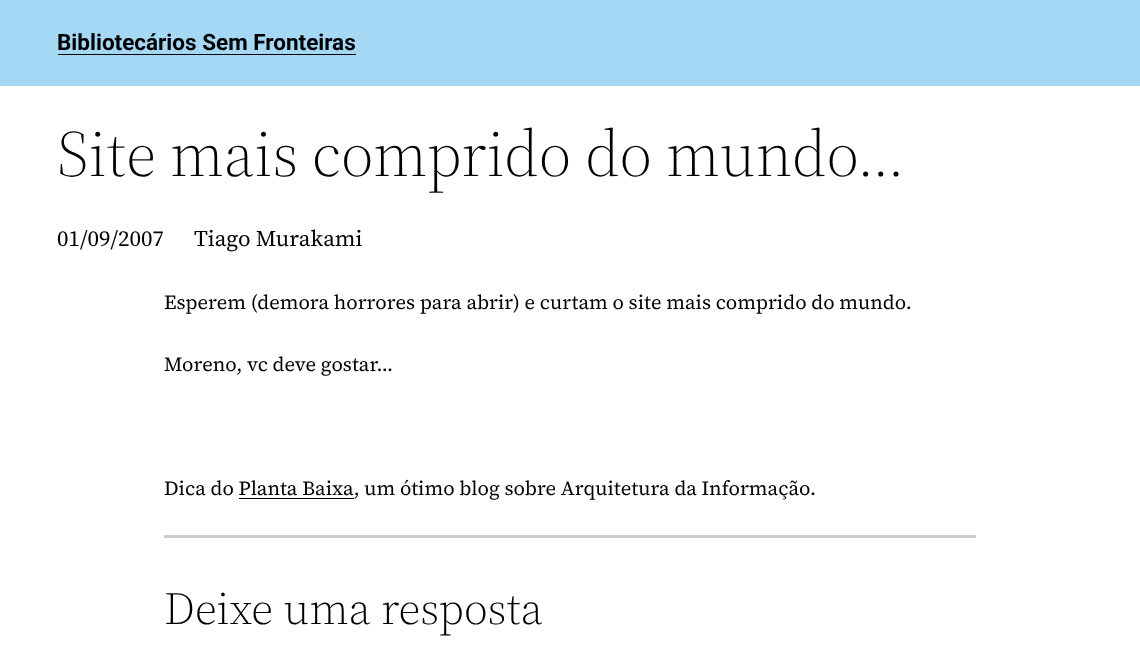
<?xml version="1.0" encoding="UTF-8"?>
<svg xmlns="http://www.w3.org/2000/svg" xmlns:xlink="http://www.w3.org/1999/xlink" width="1140" height="656">
  <rect width="100%" height="100%" fill="#ffffff" />
  <rect width="1140" height="86" fill="#a4d8f5" />
  <rect x="58" y="54" width="298" height="1" fill="#000000" />
  <rect x="239" y="498" width="115" height="1" fill="#000000" />
  <rect x="164" y="535" width="812" height="3" fill="#cccccc" />
  <text x="57" y="50" style="font-family: Roboto; font-size: 22.5px; font-weight: bold; fill: #000000">Bibliotecários Sem Fronteiras</text>
  <text x="57" y="176" style="font-family: 'Source Serif 4'; font-size: 65px; font-weight: 300; fill: #000000">Site mais comprido do mundo…</text>
  <text x="57" y="246" style="font-family: 'Source Serif 4'; font-size: 22.5px; fill: #000000">01/09/2007</text>
  <text x="194" y="246" style="font-family: 'Source Serif 4'; font-size: 22.5px; fill: #000000">Tiago Murakami</text>
  <text x="164" y="309" style="font-family: 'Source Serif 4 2'; font-size: 20px; fill: #000000">Esperem (demora horrores para abrir) e curtam o site mais comprido do mundo.</text>
  <text x="164" y="371" style="font-family: 'Source Serif 4 2'; font-size: 20px; fill: #000000">Moreno, vc deve gostar…</text>
  <text x="164" y="495" style="font-family: 'Source Serif 4 2'; font-size: 20px; fill: #000000">Dica do Planta Baixa, um ótimo blog sobre Arquitetura da Informação.</text>
  <text x="164" y="624" style="font-family: 'Source Serif 4 2'; font-size: 45.5px; font-weight: 300; fill: #000000">Deixe uma resposta</text>
</svg>
